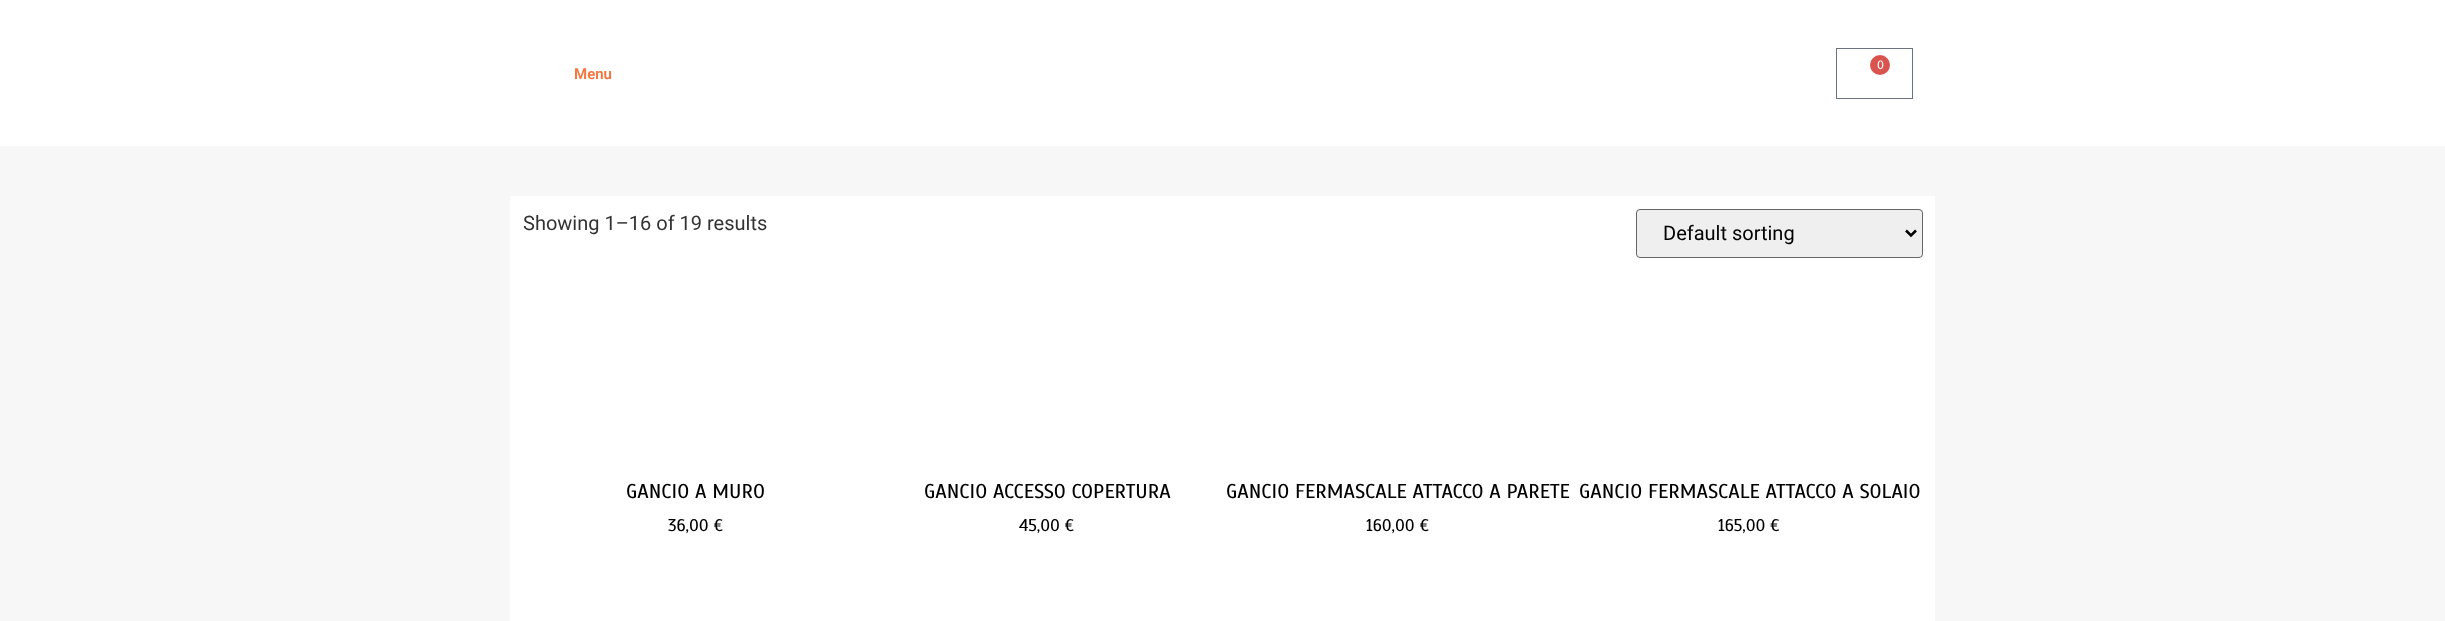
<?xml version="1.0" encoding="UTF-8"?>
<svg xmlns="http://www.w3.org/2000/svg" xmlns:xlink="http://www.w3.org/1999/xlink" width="2445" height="621">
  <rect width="100%" height="100%" fill="#f7f7f7" />
  <rect width="2445" height="146" fill="#ffffff" />
  <rect x="1836.5" y="48.5" width="76" height="50" fill="none" stroke="#69727d" />
  <circle cx="1880" cy="65" r="10" fill="#d9534f" />
  <rect x="510" y="196" width="1425" height="425" fill="#ffffff" />
  <rect x="1636.5" y="209.5" width="286" height="48" rx="3.5" fill="#efefef" stroke="#666666" />
  <path d="M 1906 230.5 l 5 5 l 5 -5" fill="none" stroke="#000000" stroke-width="2.5" />
  <text x="1877" y="69" style="font-family: Scada; font-size: 12px; fill: #ffffff">0</text>
  <text x="574" y="79" style="font-family: Roboto; font-size: 15px; font-weight: 600; fill: #f4743c">Menu</text>
  <text x="523" y="230" style="font-family: Roboto; font-size: 20px; fill: #333333">Showing 1–16 of 19 results</text>
  <text x="1663" y="240" style="font-family: Roboto; font-size: 20px; fill: #000000">Default sorting</text>
  <text x="626" y="498" style="font-family: Scada; font-size: 20px; fill: #000000">GANCIO A MURO</text>
  <text x="668" y="531" style="font-family: Scada; font-size: 17px; fill: #000000">36,00 €</text>
  <text x="924" y="498" style="font-family: Scada; font-size: 20px; fill: #000000">GANCIO ACCESSO COPERTURA</text>
  <text x="1019" y="531" style="font-family: Scada; font-size: 17px; fill: #000000">45,00 €</text>
  <text x="1226" y="498" style="font-family: Scada; font-size: 20px; fill: #000000">GANCIO FERMASCALE ATTACCO A PARETE</text>
  <text x="1366" y="531" style="font-family: Scada; font-size: 17px; fill: #000000">160,00 €</text>
  <text x="1579" y="498" style="font-family: Scada; font-size: 20px; fill: #000000">GANCIO FERMASCALE ATTACCO A SOLAIO</text>
  <text x="1718" y="531" style="font-family: Scada; font-size: 17px; fill: #000000">165,00 €</text>
</svg>
